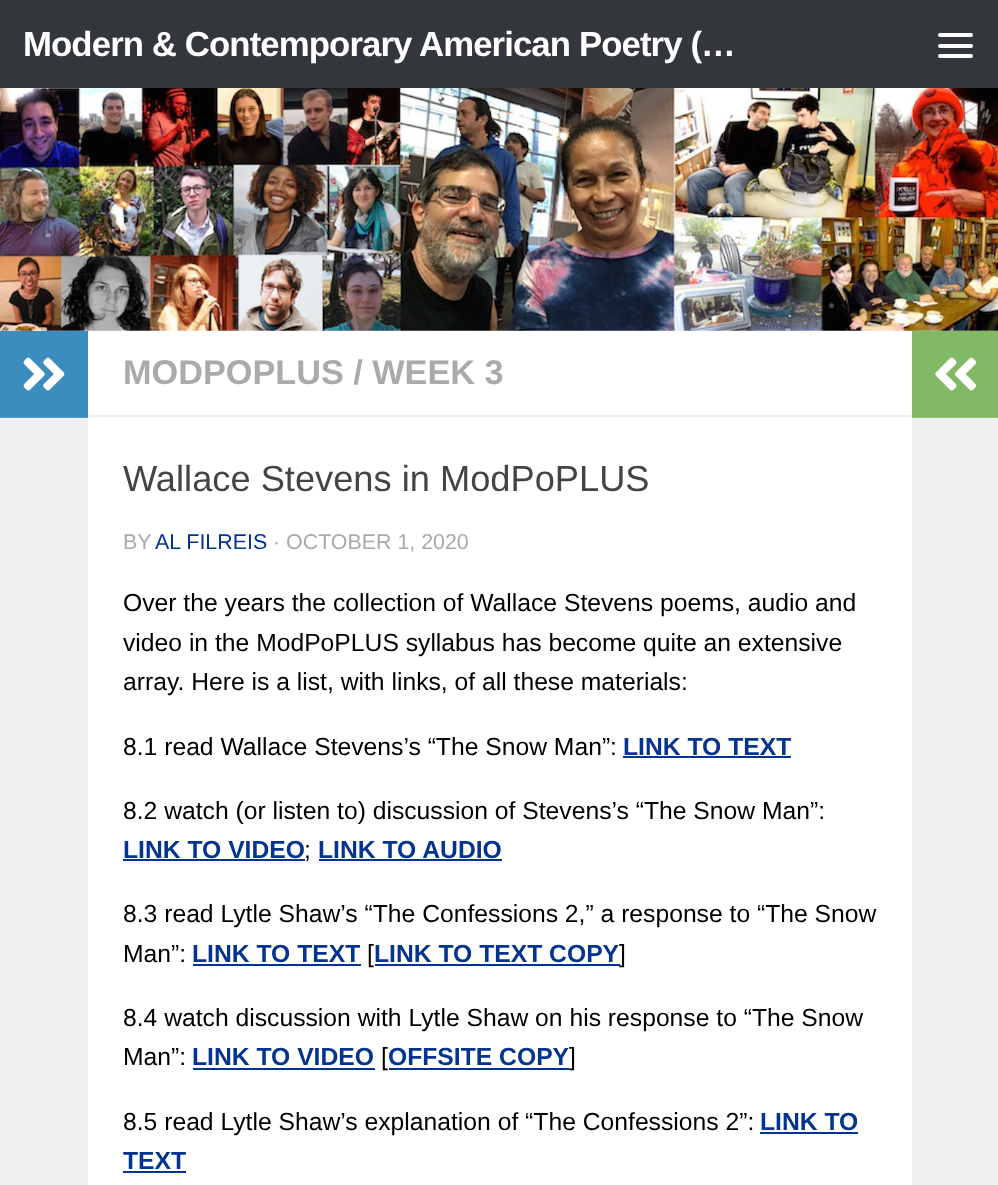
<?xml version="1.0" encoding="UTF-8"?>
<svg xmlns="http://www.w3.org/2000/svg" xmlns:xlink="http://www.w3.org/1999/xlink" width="998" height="1185">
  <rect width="100%" height="100%" fill="#ffffff" />
  <rect width="998" height="88" fill="#33363b" />
  <rect x="938" y="33" width="35" height="4" rx="2" fill="#ffffff" />
  <rect x="938" y="44" width="35" height="4" rx="2" fill="#ffffff" />
  <rect x="938" y="54" width="35" height="4" rx="2" fill="#ffffff" />
  <image x="0" y="88" width="998" height="243" xlink:href="image1.png" />
  <rect y="419" width="88" height="766" fill="#f0f0f0" />
  <rect y="418" width="88" height="1" fill="#f2f2f2" />
  <rect y="331" width="88" height="86" fill="#3b8dbd" />
  <rect y="417" width="88" height="1" fill="#4f98c4" />
  <image x="23" y="357" width="42" height="34" xlink:href="image2.png" />
  <rect x="88" y="415" width="824" height="2" fill="#eeeeee" />
  <rect x="623" y="756" width="168" height="2" fill="#043490" />
  <rect x="123" y="859" width="182" height="2" fill="#043490" />
  <rect x="319" y="859" width="183" height="2" fill="#043490" />
  <rect x="193" y="964" width="168" height="2" fill="#043490" />
  <rect x="375" y="964" width="245" height="2" fill="#043490" />
  <rect x="193" y="1068" width="182" height="2" fill="#043490" />
  <rect x="389" y="1068" width="180" height="2" fill="#043490" />
  <rect x="760" y="1132" width="98" height="2" fill="#043490" />
  <rect x="123" y="1171" width="63" height="2" fill="#043490" />
  <rect x="912" y="331" width="86" height="86" fill="#82b965" />
  <rect x="912" y="417" width="86" height="1" fill="#8fc074" />
  <image x="935" y="357" width="42" height="34" xlink:href="image3.png" />
  <rect x="912" y="419" width="86" height="766" fill="#f0f0f0" />
  <rect x="912" y="418" width="86" height="1" fill="#f2f2f2" />
  <text x="23" y="56" style="font-family: Liberation Sans; font-size: 34.75px; font-weight: bold; letter-spacing: -0.9px; fill: #ffffff">Modern &amp; Contemporary American Poetry (…</text>
  <text x="123" y="384" style="font-family: Liberation Sans; font-size: 34.25px; font-weight: bold; fill: #aaaaaa">MODPOPLUS / WEEK 3</text>
  <text x="123" y="491" style="font-family: Liberation Sans; font-size: 36.25px; fill: #444444">Wallace Stevens in ModPoPLUS</text>
  <text x="123" y="549" style="font-family: Liberation Sans; font-size: 21.4px; fill: #aaaaaa">BY</text>
  <text x="155" y="549" style="font-family: Liberation Sans; font-size: 21.4px; fill: #043490">AL FILREIS</text>
  <text x="273" y="549" style="font-family: Liberation Sans; font-size: 21.4px; fill: #aaaaaa">· OCTOBER 1, 2020</text>
  <text x="123" y="611" style="font-family: Liberation Sans; font-size: 24.7px; fill: #000000">Over the years the collection of Wallace Stevens poems, audio and</text>
  <text x="123" y="651" style="font-family: Liberation Sans; font-size: 24.7px; fill: #000000">video in the ModPoPLUS syllabus has become quite an extensive</text>
  <text x="123" y="690" style="font-family: Liberation Sans; font-size: 24.7px; fill: #000000">array. Here is a list, with links, of all these materials:</text>
  <text x="123" y="755" style="font-family: Liberation Sans; font-size: 24.7px; fill: #000000">8.1 read Wallace Stevens’s “The Snow Man”:</text>
  <text x="623" y="755" style="font-family: Liberation Sans; font-size: 24.7px; font-weight: bold; fill: #043490">LINK TO TEXT</text>
  <text x="123" y="819" style="font-family: Liberation Sans; font-size: 24.7px; fill: #000000">8.2 watch (or listen to) discussion of Stevens’s “The Snow Man”:</text>
  <text x="123" y="858" style="font-family: Liberation Sans; font-size: 24.7px; font-weight: bold; fill: #043490">LINK TO VIDEO</text>
  <text x="304" y="858" style="font-family: Liberation Sans; font-size: 24.7px; fill: #000000">;</text>
  <text x="318" y="858" style="font-family: Liberation Sans; font-size: 24.7px; font-weight: bold; fill: #043490">LINK TO AUDIO</text>
  <text x="123" y="922" style="font-family: Liberation Sans; font-size: 24.7px; fill: #000000">8.3 read Lytle Shaw’s “The Confessions 2,” a response to “The Snow</text>
  <text x="123" y="962" style="font-family: Liberation Sans; font-size: 24.7px; fill: #000000">Man”:</text>
  <text x="192" y="962" style="font-family: Liberation Sans; font-size: 24.7px; font-weight: bold; fill: #043490">LINK TO TEXT</text>
  <text x="367" y="962" style="font-family: Liberation Sans; font-size: 24.7px; fill: #000000">[</text>
  <text x="374" y="962" style="font-family: Liberation Sans; font-size: 24.7px; font-weight: bold; fill: #043490">LINK TO TEXT COPY</text>
  <text x="619" y="962" style="font-family: Liberation Sans; font-size: 24.7px; fill: #000000">]</text>
  <text x="123" y="1026" style="font-family: Liberation Sans; font-size: 24.7px; fill: #000000">8.4 watch discussion with Lytle Shaw on his response to “The Snow</text>
  <text x="123" y="1065" style="font-family: Liberation Sans; font-size: 24.7px; fill: #000000">Man”:</text>
  <text x="192" y="1065" style="font-family: Liberation Sans; font-size: 24.7px; font-weight: bold; fill: #043490">LINK TO VIDEO</text>
  <text x="381" y="1065" style="font-family: Liberation Sans; font-size: 24.7px; fill: #000000">[</text>
  <text x="388" y="1065" style="font-family: Liberation Sans; font-size: 24.7px; font-weight: bold; fill: #043490">OFFSITE COPY</text>
  <text x="569" y="1065" style="font-family: Liberation Sans; font-size: 24.7px; fill: #000000">]</text>
  <text x="123" y="1130" style="font-family: Liberation Sans; font-size: 24.7px; fill: #000000">8.5 read Lytle Shaw’s explanation of “The Confessions 2”:</text>
  <text x="760" y="1130" style="font-family: Liberation Sans; font-size: 24.7px; font-weight: bold; fill: #043490">LINK TO</text>
  <text x="123" y="1169" style="font-family: Liberation Sans; font-size: 24.7px; font-weight: bold; fill: #043490">TEXT</text>
</svg>
